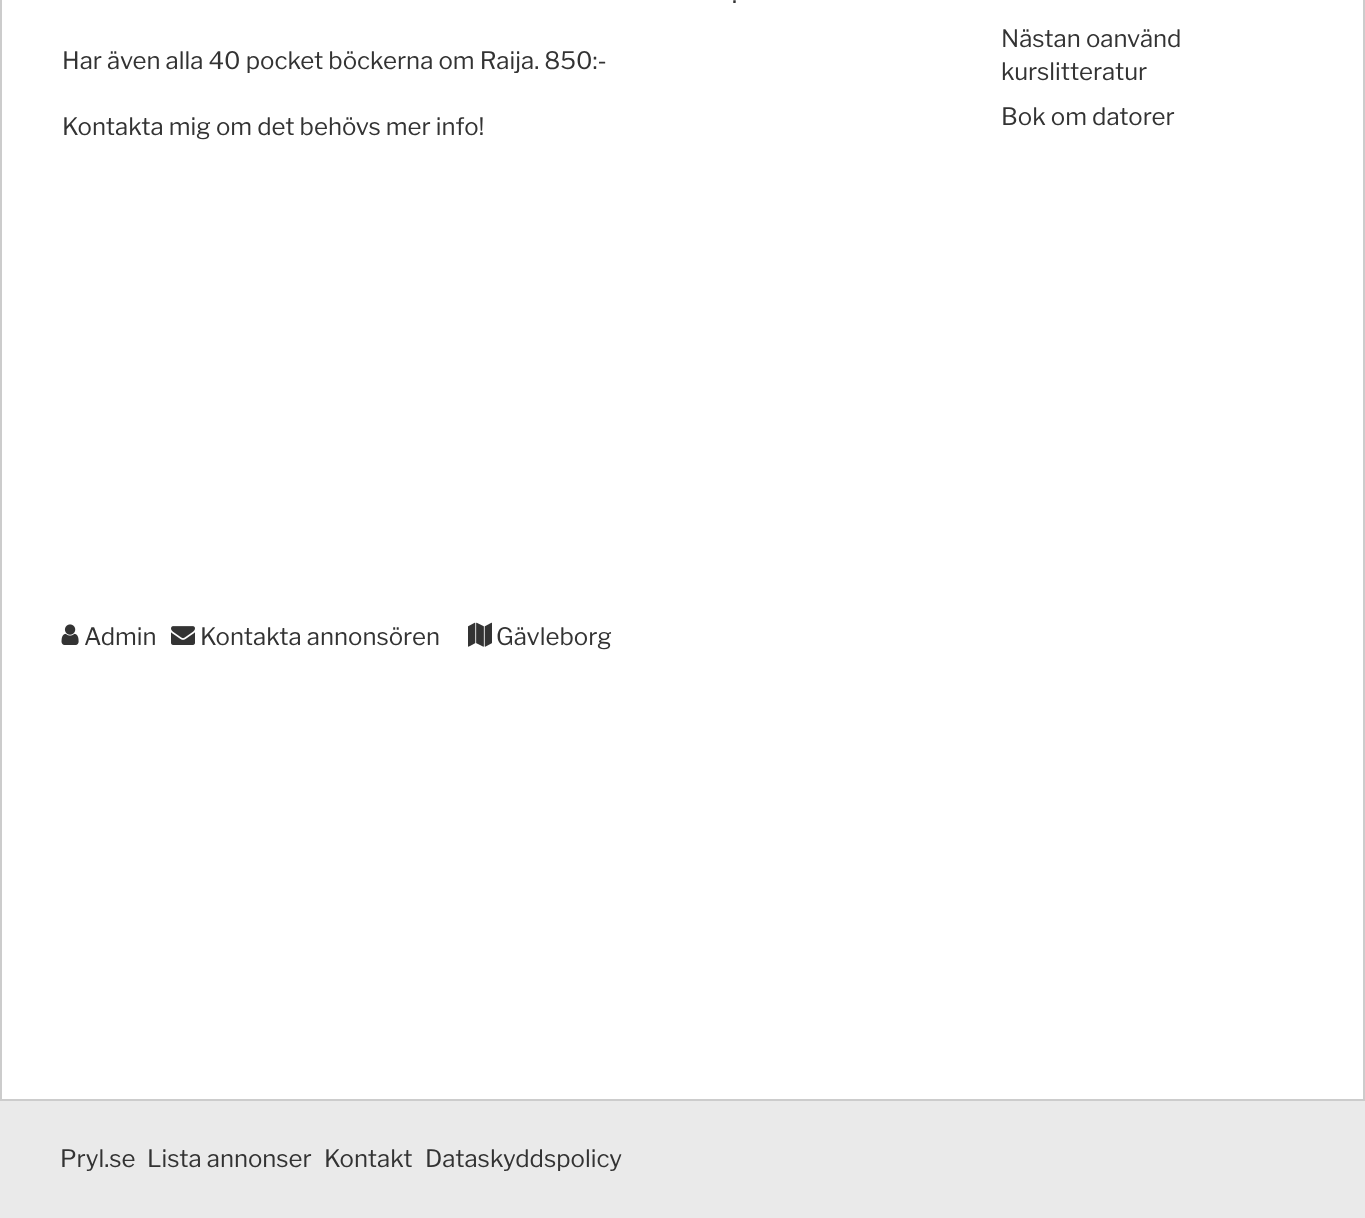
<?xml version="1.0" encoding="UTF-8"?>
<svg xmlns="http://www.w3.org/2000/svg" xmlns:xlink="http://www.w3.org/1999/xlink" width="1365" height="1218">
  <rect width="100%" height="100%" fill="#eaeaea" />
  <rect x="1" y="-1" width="1363" height="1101" fill="#ffffff" stroke="#cccccc" stroke-width="2" />
  <image x="61" y="624" width="18" height="21" xlink:href="image1.png" />
  <image x="171" y="626" width="24" height="19" xlink:href="image2.png" />
  <image x="468" y="622" width="24" height="25" xlink:href="image3.png" />
  <text x="732" y="3" style="font-family: Libre Franklin; font-size: 24px; font-weight: 100; fill: #333333">.</text>
  <text x="62" y="69" style="font-family: Libre Franklin; font-size: 24px; font-weight: 100; fill: #333333">Har även alla 40 pocket böckerna om Raija. 850:-</text>
  <text x="62" y="135" style="font-family: Libre Franklin; font-size: 24px; font-weight: 100; fill: #333333">Kontakta mig om det behövs mer info!</text>
  <text x="84" y="645" style="font-family: Libre Franklin; font-size: 24px; font-weight: 100; fill: #333333">Admin</text>
  <text x="200" y="645" style="font-family: Libre Franklin; font-size: 24px; font-weight: 100; fill: #333333">Kontakta annonsören</text>
  <text x="496" y="645" style="font-family: Libre Franklin; font-size: 24px; font-weight: 100; fill: #333333">Gävleborg</text>
  <text x="1001" y="47" style="font-family: Libre Franklin; font-size: 24px; font-weight: 100; fill: #333333">Nästan oanvänd</text>
  <text x="1001" y="80" style="font-family: Libre Franklin; font-size: 24px; font-weight: 100; fill: #333333">kurslitteratur</text>
  <text x="1001" y="125" style="font-family: Libre Franklin; font-size: 24px; font-weight: 100; fill: #333333">Bok om datorer</text>
  <text x="60" y="1167" style="font-family: Libre Franklin; font-size: 24px; font-weight: 100; fill: #333333">Pryl.se</text>
  <text x="147" y="1167" style="font-family: Libre Franklin; font-size: 24px; font-weight: 100; fill: #333333">Lista annonser</text>
  <text x="324" y="1167" style="font-family: Libre Franklin; font-size: 24px; font-weight: 100; fill: #333333">Kontakt</text>
  <text x="425" y="1167" style="font-family: Libre Franklin; font-size: 24px; font-weight: 100; fill: #333333">Dataskyddspolicy</text>
</svg>
